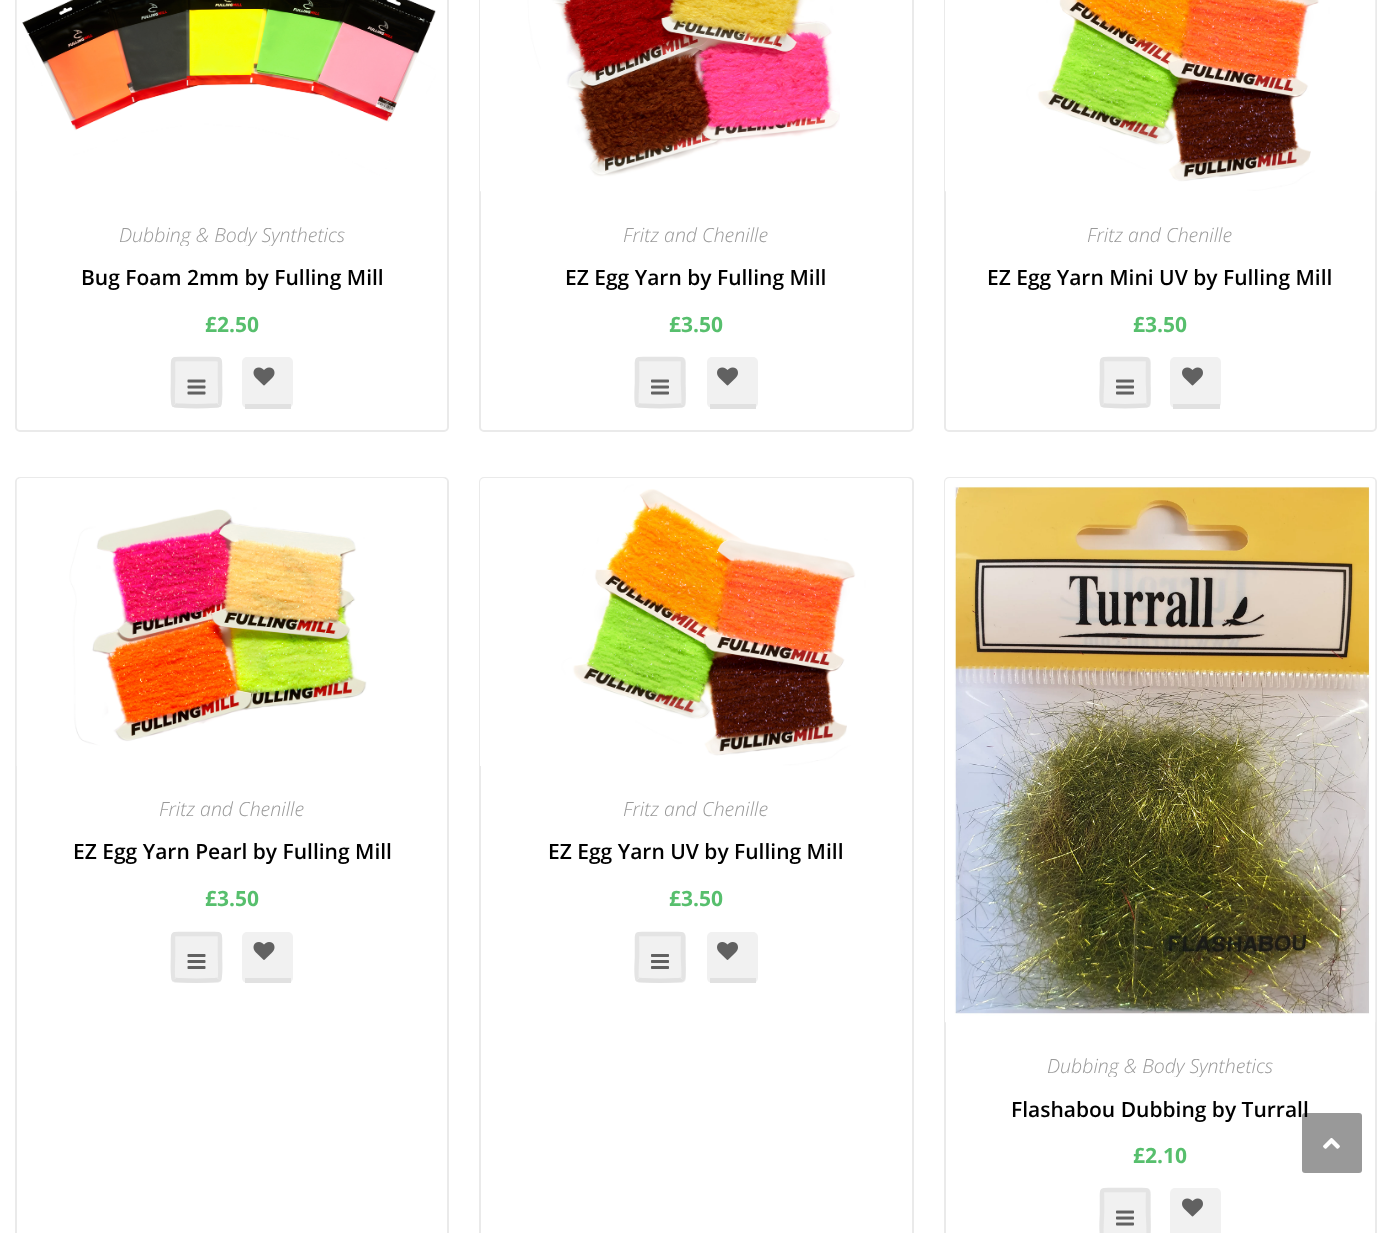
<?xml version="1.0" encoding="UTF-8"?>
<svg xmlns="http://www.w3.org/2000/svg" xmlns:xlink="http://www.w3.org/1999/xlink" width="1391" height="1233">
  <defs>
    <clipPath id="clip1"><rect x="32" y="222" width="400" height="24" /></clipPath>
    <clipPath id="clip2"><rect x="960" y="1053" width="401" height="24" /></clipPath>
  </defs>
  <rect width="100%" height="100%" fill="#ffffff" />
  <rect x="16" y="-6" width="432" height="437" rx="4" fill="none" stroke="#eaeaea" stroke-width="2" />
  <image x="16" y="0" width="420" height="191" xlink:href="image1.png" />
  <rect x="171" y="357" width="51" height="51" rx="5" fill="#f1f1f1" />
  <path d="M 219 405 c -1 1.5 -44 1.5 -45 0" fill="none" stroke="#e1e1e1" stroke-width="4.5" />
  <path d="M 174 405 c -2 -1.5 -1 -19.5 -1 -22.5 v -14 c 0 -10.5 -1 -9.5 9.5 -9.5 h 28 c 10.5 0 9.5 -1 9.5 9.5 v 14 c 0 3 1 21 -1 22.5" fill="none" stroke="#e4e4e4" stroke-width="4.5" />
  <image x="187" y="379" width="19" height="16" xlink:href="image2.png" />
  <rect x="242" y="357" width="51" height="51" rx="5" fill="#f1f1f1" />
  <rect x="245" y="404" width="46" height="5" fill="#e1e1e1" />
  <image x="253" y="367" width="22" height="19" xlink:href="image3.png" />
  <rect x="480" y="-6" width="433" height="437" rx="4" fill="none" stroke="#eaeaea" stroke-width="2" />
  <image x="480" y="0" width="360" height="192" xlink:href="image4.png" />
  <rect x="635" y="357" width="51" height="51" rx="5" fill="#f1f1f1" />
  <path d="M 682.5 405 c -1 1.5 -44 1.5 -45 0" fill="none" stroke="#e1e1e1" stroke-width="4.5" />
  <path d="M 637.5 405 c -2 -1.5 -0.5 -19.5 -0.5 -22.5 v -14 c 0 -10.5 -1.5 -9.5 9 -9.5 h 28 c 10.5 0 9 -1 9 9.5 v 14 c 0 3 1.5 21 -0.5 22.5" fill="none" stroke="#e4e4e4" stroke-width="4.5" />
  <image x="651" y="379" width="18" height="16" xlink:href="image5.png" />
  <rect x="707" y="357" width="51" height="51" rx="5" fill="#f1f1f1" />
  <rect x="710" y="404" width="46" height="5" fill="#e1e1e1" />
  <image x="717" y="367" width="21" height="19" xlink:href="image6.png" />
  <rect x="945" y="-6" width="431" height="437" rx="4" fill="none" stroke="#eaeaea" stroke-width="2" />
  <image x="945" y="0" width="431" height="192" xlink:href="image7.png" />
  <rect x="1100" y="357" width="51" height="51" rx="5" fill="#f1f1f1" />
  <path d="M 1147.5 405 c -1 1.5 -44 1.5 -45 0" fill="none" stroke="#e1e1e1" stroke-width="4.5" />
  <path d="M 1102.5 405 c -2 -1.5 -0.5 -19.5 -0.5 -22.5 v -14 c 0 -10.5 -1.5 -9.5 9 -9.5 h 28 c 10.5 0 9 -1 9 9.5 v 14 c 0 3 1.5 21 -0.5 22.5" fill="none" stroke="#e4e4e4" stroke-width="4.5" />
  <image x="1116" y="379" width="18" height="16" xlink:href="image5.png" />
  <rect x="1170" y="357" width="51" height="51" rx="5" fill="#f1f1f1" />
  <rect x="1173" y="404" width="47" height="5" fill="#e1e1e1" />
  <image x="1182" y="367" width="21" height="19" xlink:href="image6.png" />
  <rect x="16" y="478" width="432" height="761" rx="4" fill="none" stroke="#eaeaea" stroke-width="2" />
  <image x="16" y="478" width="431" height="288" xlink:href="image8.png" />
  <rect x="171" y="932" width="51" height="51" rx="5" fill="#f1f1f1" />
  <path d="M 219 979.5 c -1 1.5 -44 1.5 -45 0" fill="none" stroke="#e1e1e1" stroke-width="4.5" />
  <path d="M 174 979.5 c -2 -1.5 -1 -19.5 -1 -22.5 v -14 c 0 -10.5 -1 -9 9.5 -9 h 28 c 10.5 0 9.5 -1.5 9.5 9 v 14 c 0 3 1 21 -1 22.5" fill="none" stroke="#e4e4e4" stroke-width="4.5" />
  <image x="187" y="954" width="19" height="15" xlink:href="image9.png" />
  <rect x="242" y="932" width="51" height="51" rx="5" fill="#f1f1f1" />
  <rect x="245" y="978" width="46" height="5" fill="#e1e1e1" />
  <image x="253" y="942" width="22" height="18" xlink:href="image10.png" />
  <rect x="480" y="478" width="433" height="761" rx="4" fill="none" stroke="#eaeaea" stroke-width="2" />
  <image x="480" y="478" width="432" height="288" xlink:href="image11.png" />
  <rect x="635" y="932" width="51" height="51" rx="5" fill="#f1f1f1" />
  <path d="M 682.5 979.5 c -1 1.5 -44 1.5 -45 0" fill="none" stroke="#e1e1e1" stroke-width="4.5" />
  <path d="M 637.5 979.5 c -2 -1.5 -0.5 -19.5 -0.5 -22.5 v -14 c 0 -10.5 -1.5 -9 9 -9 h 28 c 10.5 0 9 -1.5 9 9 v 14 c 0 3 1.5 21 -0.5 22.5" fill="none" stroke="#e4e4e4" stroke-width="4.5" />
  <image x="651" y="954" width="18" height="15" xlink:href="image12.png" />
  <rect x="707" y="932" width="51" height="51" rx="5" fill="#f1f1f1" />
  <rect x="710" y="978" width="46" height="5" fill="#e1e1e1" />
  <image x="717" y="942" width="21" height="18" xlink:href="image13.png" />
  <rect x="945" y="478" width="431" height="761" rx="4" fill="none" stroke="#eaeaea" stroke-width="2" />
  <image x="945" y="478" width="431" height="545" xlink:href="image14.png" />
  <rect x="1100" y="1188" width="51" height="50" rx="5" fill="#f1f1f1" />
  <path d="M 1102.5 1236 c -2 -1.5 -0.5 -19.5 -0.5 -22.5 v -14 c 0 -10.5 -1.5 -9.5 9 -9.5 h 28 c 10.5 0 9 -1 9 9.5 v 14 c 0 3 1.5 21 -0.5 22.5" fill="none" stroke="#e4e4e4" stroke-width="4.5" />
  <image x="1116" y="1210" width="18" height="16" xlink:href="image5.png" />
  <rect x="1170" y="1188" width="51" height="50" rx="5" fill="#f1f1f1" />
  <image x="1182" y="1198" width="21" height="19" xlink:href="image6.png" />
  <g clip-path="url(#clip1)">
    <text x="119" y="242" style="font-family: Open Sans; font-size: 19.5px; font-weight: 300; font-style: italic; fill: #999999">Dubbing &amp; Body Synthetics</text>
  </g>
  <text x="81" y="285" style="font-family: Open Sans; font-size: 21px; font-weight: 600; fill: #000000">Bug Foam 2mm by Fulling Mill</text>
  <text x="205" y="332" style="font-family: Open Sans; font-size: 21px; font-weight: bold; fill: #57bf6d">£2.50</text>
  <text x="623" y="242" style="font-family: Open Sans; font-size: 19.5px; font-weight: 300; font-style: italic; fill: #999999">Fritz and Chenille</text>
  <text x="565" y="285" style="font-family: Open Sans; font-size: 21px; font-weight: 600; fill: #000000">EZ Egg Yarn by Fulling Mill</text>
  <text x="669" y="332" style="font-family: Open Sans; font-size: 21px; font-weight: bold; fill: #57bf6d">£3.50</text>
  <text x="1087" y="242" style="font-family: Open Sans; font-size: 19.5px; font-weight: 300; font-style: italic; fill: #999999">Fritz and Chenille</text>
  <text x="987" y="285" style="font-family: Open Sans; font-size: 21px; font-weight: 600; fill: #000000">EZ Egg Yarn Mini UV by Fulling Mill</text>
  <text x="1133" y="332" style="font-family: Open Sans; font-size: 21px; font-weight: bold; fill: #57bf6d">£3.50</text>
  <text x="159" y="816" style="font-family: Open Sans; font-size: 19.5px; font-weight: 300; font-style: italic; fill: #999999">Fritz and Chenille</text>
  <text x="73" y="859" style="font-family: Open Sans; font-size: 21px; font-weight: 600; fill: #000000">EZ Egg Yarn Pearl by Fulling Mill</text>
  <text x="205" y="906" style="font-family: Open Sans; font-size: 21px; font-weight: bold; fill: #57bf6d">£3.50</text>
  <text x="623" y="816" style="font-family: Open Sans; font-size: 19.5px; font-weight: 300; font-style: italic; fill: #999999">Fritz and Chenille</text>
  <text x="548" y="859" style="font-family: Open Sans; font-size: 21px; font-weight: 600; fill: #000000">EZ Egg Yarn UV by Fulling Mill</text>
  <text x="669" y="906" style="font-family: Open Sans; font-size: 21px; font-weight: bold; fill: #57bf6d">£3.50</text>
  <g clip-path="url(#clip2)">
    <text x="1047" y="1073" style="font-family: Open Sans; font-size: 19.5px; font-weight: 300; font-style: italic; fill: #999999">Dubbing &amp; Body Synthetics</text>
  </g>
  <text x="1011" y="1117" style="font-family: Open Sans; font-size: 21px; font-weight: 600; fill: #000000">Flashabou Dubbing by Turrall</text>
  <text x="1133" y="1163" style="font-family: Open Sans; font-size: 21px; font-weight: bold; fill: #57bf6d">£2.10</text>
  <rect x="1302" y="1113" width="60" height="60" rx="3" fill="#000000" fill-opacity="0.4" />
  <image x="1323" y="1138" width="17" height="11" xlink:href="image15.png" />
</svg>
